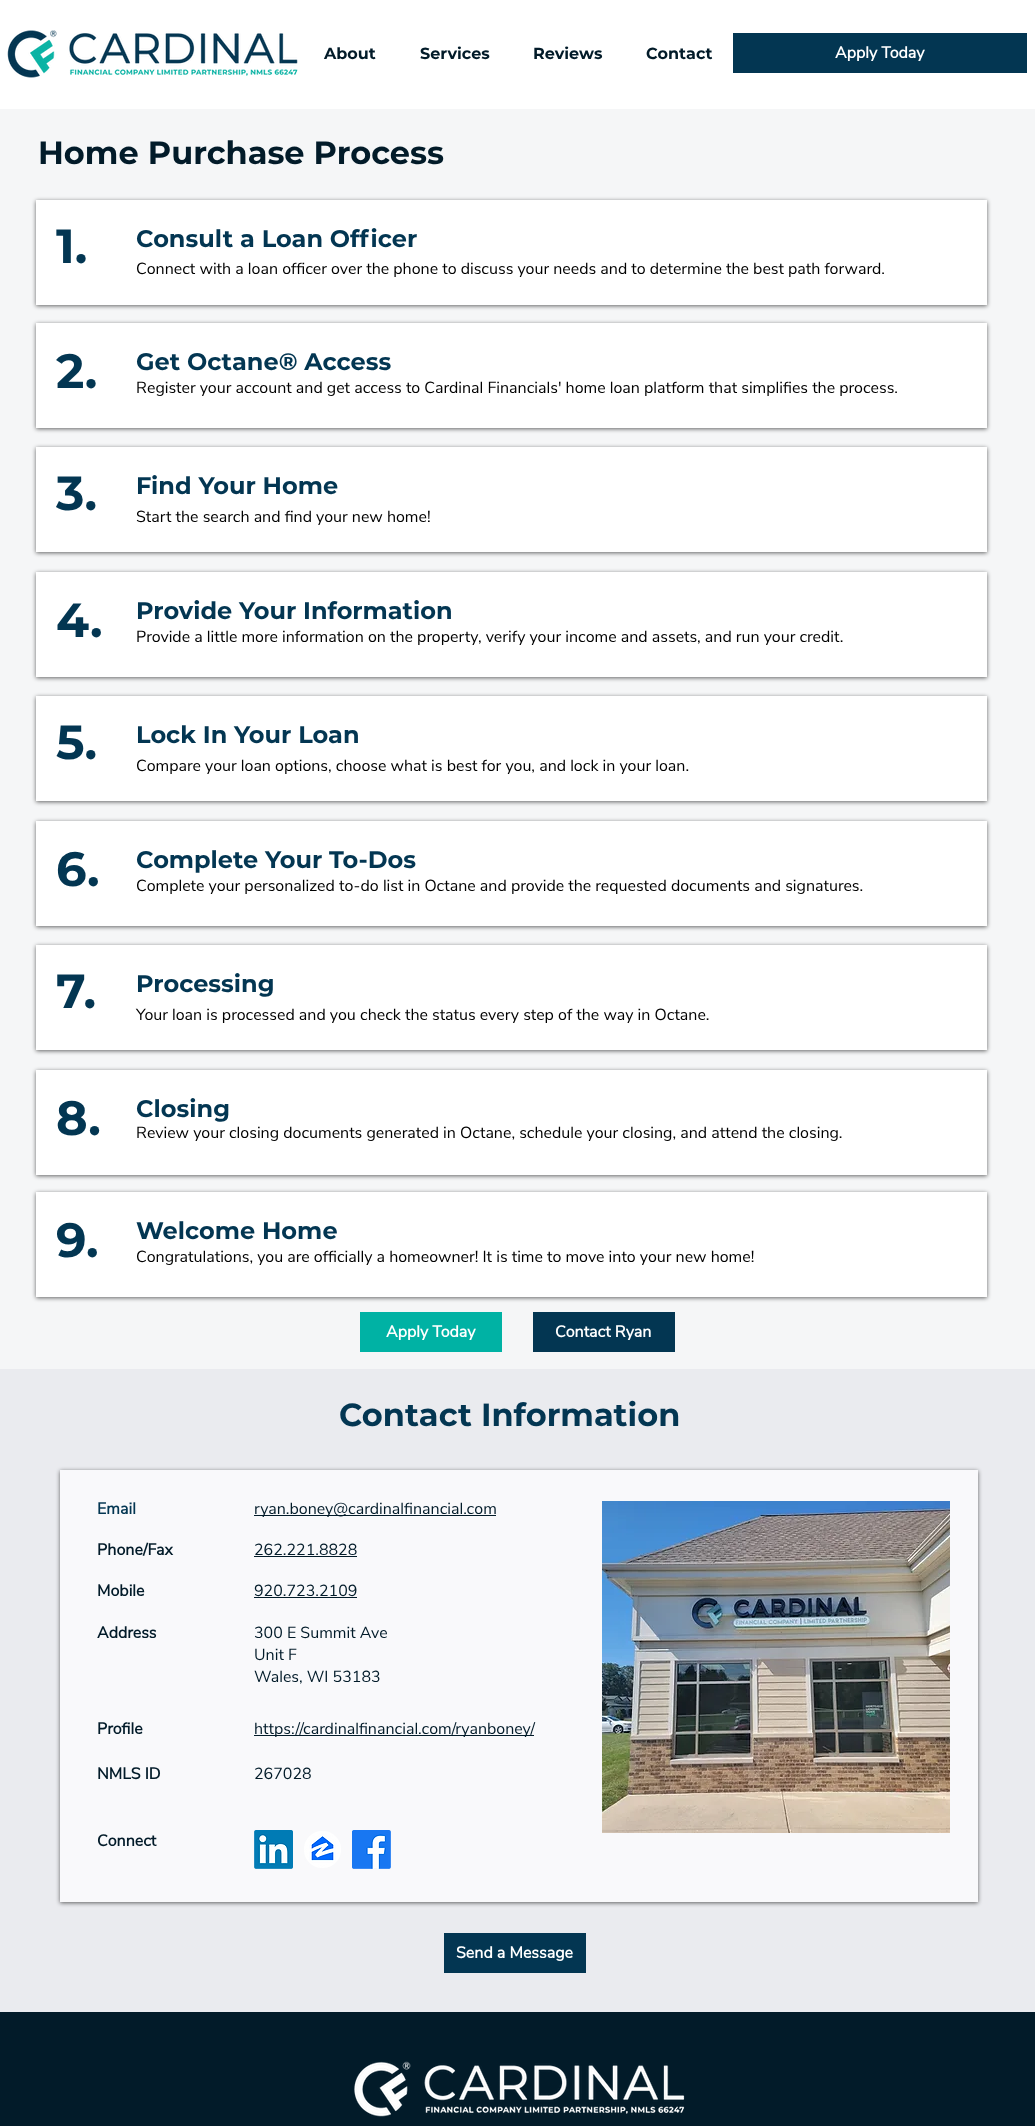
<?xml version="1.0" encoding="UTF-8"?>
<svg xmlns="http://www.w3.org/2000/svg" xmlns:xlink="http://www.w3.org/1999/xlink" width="1035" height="2126">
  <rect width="100%" height="100%" fill="#f5f6f7" />
  <rect width="1035" height="109" fill="#ffffff" />
  <image x="7" y="30" width="291" height="48" xlink:href="image1.png" />
  <rect x="733" y="33" width="294" height="40" fill="#033652" />
  <rect x="36" y="201" width="951" height="105" fill="#000000" fill-opacity="0.6" filter="blur(2px)" />
  <rect x="36" y="200" width="951" height="105" fill="#ffffff" />
  <rect x="36" y="324" width="951" height="105" fill="#000000" fill-opacity="0.6" filter="blur(2px)" />
  <rect x="36" y="323" width="951" height="105" fill="#ffffff" />
  <rect x="36" y="448" width="951" height="105" fill="#000000" fill-opacity="0.6" filter="blur(2px)" />
  <rect x="36" y="447" width="951" height="105" fill="#ffffff" />
  <rect x="36" y="573" width="951" height="105" fill="#000000" fill-opacity="0.6" filter="blur(2px)" />
  <rect x="36" y="572" width="951" height="105" fill="#ffffff" />
  <rect x="36" y="697" width="951" height="105" fill="#000000" fill-opacity="0.6" filter="blur(2px)" />
  <rect x="36" y="696" width="951" height="105" fill="#ffffff" />
  <rect x="36" y="822" width="951" height="105" fill="#000000" fill-opacity="0.6" filter="blur(2px)" />
  <rect x="36" y="821" width="951" height="105" fill="#ffffff" />
  <rect x="36" y="946" width="951" height="105" fill="#000000" fill-opacity="0.6" filter="blur(2px)" />
  <rect x="36" y="945" width="951" height="105" fill="#ffffff" />
  <rect x="36" y="1071" width="951" height="105" fill="#000000" fill-opacity="0.6" filter="blur(2px)" />
  <rect x="36" y="1070" width="951" height="105" fill="#ffffff" />
  <rect x="36" y="1193" width="951" height="105" fill="#000000" fill-opacity="0.6" filter="blur(2px)" />
  <rect x="36" y="1192" width="951" height="105" fill="#ffffff" />
  <rect x="360" y="1312" width="142" height="40" fill="#00b2a4" />
  <rect x="533" y="1312" width="142" height="40" fill="#033652" />
  <rect y="1369" width="1035" height="643" fill="#eaebef" />
  <rect x="60" y="1471" width="918" height="432" fill="#000000" fill-opacity="0.6" filter="blur(2px)" />
  <rect x="60" y="1470" width="918" height="432" fill="#f9f9fb" />
  <rect x="254" y="1515" width="242" height="1" fill="#021b29" />
  <image x="602" y="1501" width="348" height="332" xlink:href="image2.png" />
  <rect x="254" y="1556" width="103" height="1" fill="#021b29" />
  <rect x="254" y="1597" width="103" height="1" fill="#021b29" />
  <rect x="254" y="1735" width="280" height="1" fill="#021b29" />
  <image x="254" y="1830" width="39" height="39" xlink:href="image3.png" />
  <image x="304" y="1831" width="37" height="37" xlink:href="image4.png" />
  <image x="352" y="1830" width="39" height="39" xlink:href="image5.png" />
  <rect x="444" y="1933" width="142" height="40" fill="#033652" />
  <rect y="2012" width="1035" height="114" fill="#021b29" />
  <image x="354" y="2061" width="331" height="56" xlink:href="image6.png" />
  <text x="324" y="59" style="font-family: Montserrat; font-size: 16px; font-weight: bold; fill: #021b29">About</text>
  <text x="420" y="59" style="font-family: Montserrat; font-size: 16px; font-weight: bold; fill: #021b29">Services</text>
  <text x="533" y="59" style="font-family: Montserrat; font-size: 16px; font-weight: bold; fill: #021b29">Reviews</text>
  <text x="646" y="59" style="font-family: Montserrat; font-size: 16px; font-weight: bold; fill: #021b29">Contact</text>
  <text x="835" y="58" style="font-family: Nunito Sans; font-size: 16px; font-weight: bold; fill: #ffffff">Apply Today</text>
  <text x="38" y="164" style="font-family: Montserrat; font-size: 32px; font-weight: bold; fill: #021b29">Home Purchase Process</text>
  <text x="56" y="263" style="font-family: Montserrat; font-size: 48px; font-weight: bold; fill: #033652">1.</text>
  <text x="136" y="247" style="font-family: Montserrat; font-size: 24px; font-weight: bold; fill: #033652">Consult a Loan Officer</text>
  <text x="136" y="274" style="font-family: Nunito Sans; font-size: 16px; fill: #000000">Connect with a loan officer over the phone to discuss your needs and to determine the best path forward.</text>
  <text x="56" y="388" style="font-family: Montserrat; font-size: 48px; font-weight: bold; fill: #033652">2.</text>
  <text x="136" y="370" style="font-family: Montserrat; font-size: 24px; font-weight: bold; fill: #033652">Get Octane® Access</text>
  <text x="136" y="393" style="font-family: Nunito Sans; font-size: 16px; fill: #000000">Register your account and get access to Cardinal Financials' home loan platform that simplifies the process.</text>
  <text x="56" y="510" style="font-family: Montserrat; font-size: 48px; font-weight: bold; fill: #033652">3.</text>
  <text x="136" y="494" style="font-family: Montserrat; font-size: 24px; font-weight: bold; fill: #033652">Find Your Home</text>
  <text x="136" y="522" style="font-family: Nunito Sans; font-size: 16px; fill: #000000">Start the search and find your new home!</text>
  <text x="56" y="637" style="font-family: Montserrat; font-size: 48px; font-weight: bold; fill: #033652">4.</text>
  <text x="136" y="619" style="font-family: Montserrat; font-size: 24px; font-weight: bold; fill: #033652">Provide Your Information</text>
  <text x="136" y="642" style="font-family: Nunito Sans; font-size: 16px; fill: #000000">Provide a little more information on the property, verify your income and assets, and run your credit.</text>
  <text x="56" y="759" style="font-family: Montserrat; font-size: 48px; font-weight: bold; fill: #033652">5.</text>
  <text x="136" y="743" style="font-family: Montserrat; font-size: 24px; font-weight: bold; fill: #033652">Lock In Your Loan</text>
  <text x="136" y="771" style="font-family: Nunito Sans; font-size: 16px; fill: #000000">Compare your loan options, choose what is best for you, and lock in your loan.</text>
  <text x="56" y="886" style="font-family: Montserrat; font-size: 48px; font-weight: bold; fill: #033652">6.</text>
  <text x="136" y="868" style="font-family: Montserrat; font-size: 24px; font-weight: bold; fill: #033652">Complete Your To-Dos</text>
  <text x="136" y="891" style="font-family: Nunito Sans; font-size: 16px; fill: #000000">Complete your personalized to-do list in Octane and provide the requested documents and signatures.</text>
  <text x="56" y="1008" style="font-family: Montserrat; font-size: 48px; font-weight: bold; fill: #033652">7.</text>
  <text x="136" y="992" style="font-family: Montserrat; font-size: 24px; font-weight: bold; fill: #033652">Processing</text>
  <text x="136" y="1020" style="font-family: Nunito Sans; font-size: 16px; fill: #000000">Your loan is processed and you check the status every step of the way in Octane.</text>
  <text x="56" y="1135" style="font-family: Montserrat; font-size: 48px; font-weight: bold; fill: #033652">8.</text>
  <text x="136" y="1117" style="font-family: Montserrat; font-size: 24px; font-weight: bold; fill: #033652">Closing</text>
  <text x="136" y="1138" style="font-family: Nunito Sans; font-size: 16px; fill: #000000">Review your closing documents generated in Octane, schedule your closing, and attend the closing.</text>
  <text x="56" y="1257" style="font-family: Montserrat; font-size: 48px; font-weight: bold; fill: #033652">9.</text>
  <text x="136" y="1239" style="font-family: Montserrat; font-size: 24px; font-weight: bold; fill: #033652">Welcome Home</text>
  <text x="136" y="1262" style="font-family: Nunito Sans; font-size: 16px; fill: #000000">Congratulations, you are officially a homeowner! It is time to move into your new home!</text>
  <text x="386" y="1337" style="font-family: Nunito Sans; font-size: 16px; font-weight: bold; fill: #ffffff">Apply Today</text>
  <text x="555" y="1337" style="font-family: Nunito Sans; font-size: 16px; font-weight: bold; fill: #ffffff">Contact Ryan</text>
  <text x="339" y="1426" style="font-family: Montserrat; font-size: 32px; font-weight: bold; fill: #033652">Contact Information</text>
  <text x="97" y="1514" style="font-family: Nunito Sans; font-size: 16px; font-weight: bold; fill: #033652">Email</text>
  <text x="254" y="1514" style="font-family: Nunito Sans; font-size: 16px; fill: #021b29">ryan.boney@cardinalfinancial.com</text>
  <text x="97" y="1555" style="font-family: Nunito Sans; font-size: 16px; font-weight: bold; fill: #021b29">Phone/Fax</text>
  <text x="254" y="1555" style="font-family: Nunito Sans; font-size: 16px; fill: #021b29">262.221.8828</text>
  <text x="97" y="1596" style="font-family: Nunito Sans; font-size: 16px; font-weight: bold; fill: #021b29">Mobile</text>
  <text x="254" y="1596" style="font-family: Nunito Sans; font-size: 16px; fill: #021b29">920.723.2109</text>
  <text x="97" y="1638" style="font-family: Nunito Sans; font-size: 16px; font-weight: bold; fill: #021b29">Address</text>
  <text x="254" y="1638" style="font-family: Nunito Sans; font-size: 16px; fill: #021b29">300 E Summit Ave</text>
  <text x="254" y="1660" style="font-family: Nunito Sans; font-size: 16px; fill: #021b29">Unit F</text>
  <text x="254" y="1682" style="font-family: Nunito Sans; font-size: 16px; fill: #021b29">Wales, WI 53183</text>
  <text x="97" y="1734" style="font-family: Nunito Sans; font-size: 16px; font-weight: bold; fill: #021b29">Profile</text>
  <text x="254" y="1734" style="font-family: Nunito Sans; font-size: 16px; fill: #021b29">https://cardinalfinancial.com/ryanboney/</text>
  <text x="97" y="1779" style="font-family: Nunito Sans; font-size: 16px; font-weight: bold; fill: #021b29">NMLS ID</text>
  <text x="254" y="1779" style="font-family: Nunito Sans; font-size: 16px; fill: #021b29">267028</text>
  <text x="97" y="1846" style="font-family: Nunito Sans; font-size: 16px; font-weight: bold; fill: #021b29">Connect</text>
  <text x="456" y="1958" style="font-family: Nunito Sans; font-size: 16px; font-weight: bold; fill: #ffffff">Send a Message</text>
</svg>
